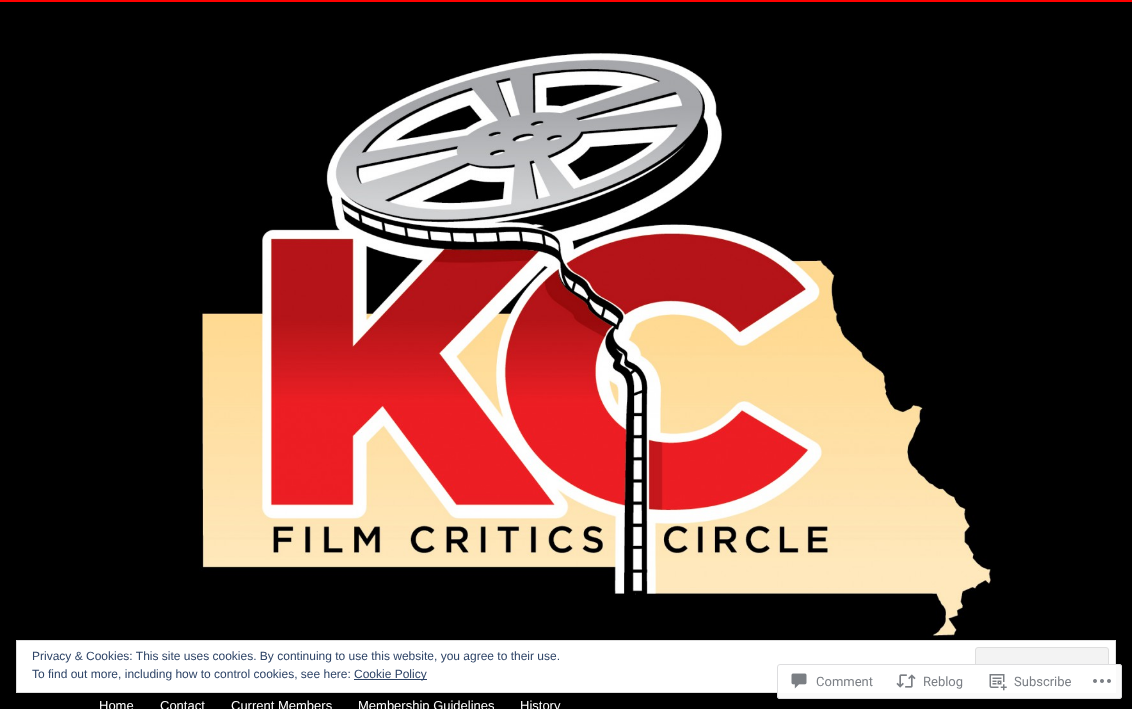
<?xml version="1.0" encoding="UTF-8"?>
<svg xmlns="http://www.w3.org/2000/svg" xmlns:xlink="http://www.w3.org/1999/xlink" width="1132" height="709">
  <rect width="100%" height="100%" fill="#000000" />
  <rect width="1132" height="2" fill="#ff0000" />
  <rect x="16.5" y="640.5" width="1099" height="52" fill="#ffffff" stroke="#dedede" />
  <rect x="975.5" y="647.5" width="133" height="38" rx="2.5" fill="#f3f3f3" stroke="#dedede" />
  <rect x="354" y="679" width="73" height="1" fill="#2e4467" />
  <rect x="777" y="664" width="345" height="35" rx="3" fill="#ffffff" fill-opacity="0.98" />
  <rect x="777.5" y="664.5" width="344" height="34" rx="2.5" fill="none" stroke="#dcdcde" stroke-opacity="0.98" />
  <image x="791" y="673" width="16" height="16" xlink:href="image1.png" />
  <image x="896" y="674" width="20" height="14" xlink:href="image2.png" />
  <image x="989" y="674" width="18" height="17" xlink:href="image3.png" />
  <image x="1093" y="679" width="18" height="4" xlink:href="image4.png" />
  <image x="199" y="53" width="793" height="585" xlink:href="image5.png" />
  <text x="32" y="660" style="font-family: Liberation Sans; font-size: 12px; fill: #2e4467">Privacy &amp; Cookies: This site uses cookies. By continuing to use this website, you agree to their use.</text>
  <text x="32" y="678" style="font-family: Liberation Sans; font-size: 12px; fill: #2e4467">To find out more, including how to control cookies, see here:</text>
  <text x="354" y="678" style="font-family: Liberation Sans; font-size: 12px; fill: #2e4467">Cookie Policy</text>
  <text x="816" y="686" style="font-family: Roboto; font-size: 13px; fill: #7b7f85">Comment</text>
  <text x="923" y="686" style="font-family: Roboto; font-size: 13px; fill: #7b7f85">Reblog</text>
  <text x="1014" y="686" style="font-family: Roboto; font-size: 13px; fill: #7b7f85">Subscribe</text>
  <text x="99" y="710" style="font-family: Liberation Sans; font-size: 13px; fill: #ffffff">Home</text>
  <text x="160" y="710" style="font-family: Liberation Sans; font-size: 13px; fill: #ffffff">Contact</text>
  <text x="231" y="710" style="font-family: Liberation Sans; font-size: 13px; fill: #ffffff">Current Members</text>
  <text x="358" y="710" style="font-family: Liberation Sans; font-size: 13px; fill: #ffffff">Membership Guidelines</text>
  <text x="520" y="710" style="font-family: Liberation Sans; font-size: 13px; fill: #ffffff">History</text>
</svg>
